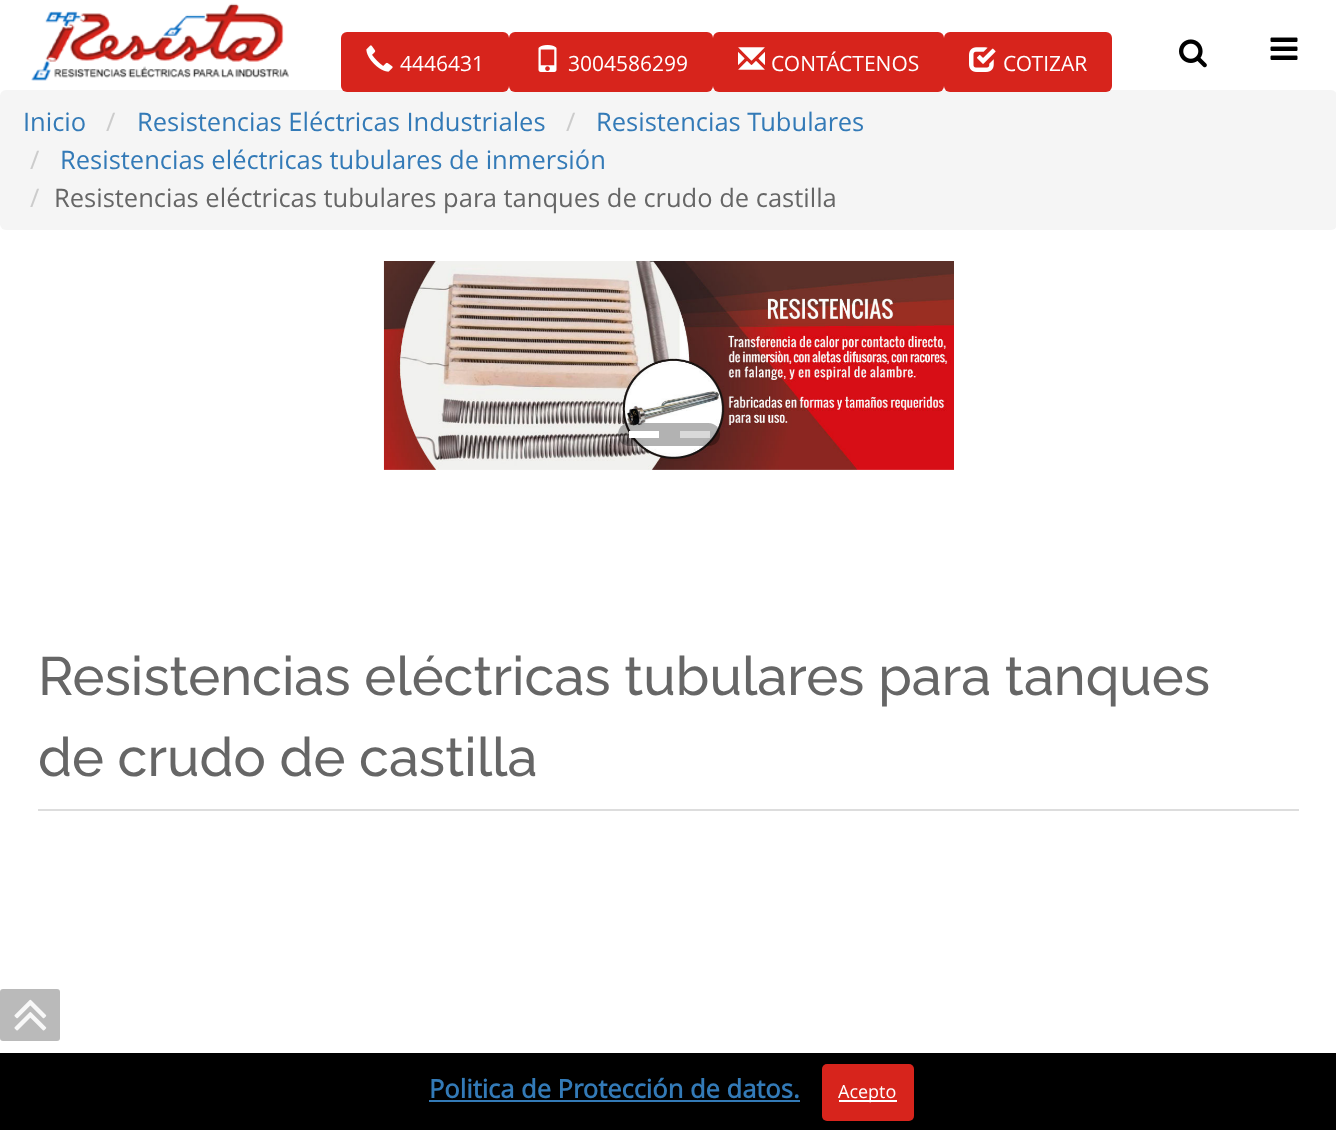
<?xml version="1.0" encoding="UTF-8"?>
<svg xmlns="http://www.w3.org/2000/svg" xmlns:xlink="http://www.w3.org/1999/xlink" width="1336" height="1130">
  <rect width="100%" height="100%" fill="#ffffff" />
  <image x="31" y="3" width="258" height="78" xlink:href="image1.png" />
  <rect y="90" width="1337" height="140" rx="6" fill="#f5f5f5" />
  <rect x="341" y="32" width="168" height="60" rx="6" fill="#d7241c" />
  <image x="366" y="45" width="27" height="27" xlink:href="image2.png" />
  <rect x="509" y="32" width="204" height="60" rx="6" fill="#d7241c" />
  <image x="538" y="45" width="19" height="27" xlink:href="image3.png" />
  <rect x="713" y="32" width="231" height="60" rx="6" fill="#d7241c" />
  <image x="738" y="47" width="27" height="23" xlink:href="image4.png" />
  <rect x="944" y="32" width="168" height="60" rx="6" fill="#d7241c" />
  <image x="969" y="47" width="27" height="25" xlink:href="image5.png" />
  <image x="1179" y="39" width="28" height="29" xlink:href="image6.png" />
  <image x="1270" y="37" width="28" height="23" xlink:href="image7.png" />
  <image x="383" y="261" width="571" height="209" xlink:href="image8.png" />
  <path d="M 629.5 423 h 39.5 v 23 h -39.5 c -6.5 0 -11.5 -5 -11.5 -11.5 c 0 -6.5 5 -11.5 11.5 -11.5 z" fill="#000000" fill-opacity="0.3" />
  <rect x="629" y="431" width="30" height="7" fill="#ffffff" />
  <path d="M 669 423 h 39.5 c 6.5 0 11.5 5 11.5 11.5 c 0 6.5 -5 11.5 -11.5 11.5 h -39.5 z" fill="#000000" fill-opacity="0.3" />
  <rect x="680" y="431" width="30" height="7" fill="#ffffff" fill-opacity="0.5" />
  <rect x="38" y="809" width="1261" height="2" fill="#dddddd" />
  <rect y="989" width="60" height="52" rx="3" fill="#bababa" />
  <image x="14" y="999" width="33" height="32" xlink:href="image9.png" />
  <rect y="1053" width="1336" height="77" fill="#000000" />
  <rect x="429" y="1100" width="371" height="2" fill="#337ab7" />
  <rect x="822" y="1064" width="92" height="57" rx="5" fill="#d7241c" />
  <rect x="839" y="1100" width="58" height="2" fill="#ffffff" />
  <text x="400" y="71" style="font-family: Open Sans; font-size: 21px; fill: #ffffff">4446431</text>
  <text x="568" y="71" style="font-family: Open Sans; font-size: 21px; fill: #ffffff">3004586299</text>
  <text x="771" y="71" style="font-family: Open Sans; font-size: 21px; fill: #ffffff">CONTÁCTENOS</text>
  <text x="1003" y="71" style="font-family: Open Sans; font-size: 21px; fill: #ffffff">COTIZAR</text>
  <text x="23" y="131" style="font-family: Open Sans; font-size: 25.5px; fill: #337ab7">Inicio</text>
  <text x="106" y="131" style="font-family: Open Sans; font-size: 25.5px; fill: #cccccc">/</text>
  <text x="137" y="131" style="font-family: Open Sans; font-size: 25.5px; fill: #337ab7">Resistencias Eléctricas Industriales</text>
  <text x="566" y="131" style="font-family: Open Sans; font-size: 25.5px; fill: #cccccc">/</text>
  <text x="596" y="131" style="font-family: Open Sans; font-size: 25.5px; fill: #337ab7">Resistencias Tubulares</text>
  <text x="30" y="169" style="font-family: Open Sans; font-size: 25.5px; fill: #cccccc">/</text>
  <text x="60" y="169" style="font-family: Open Sans; font-size: 25.5px; fill: #337ab7">Resistencias eléctricas tubulares de inmersión</text>
  <text x="30" y="207" style="font-family: Open Sans; font-size: 25.5px; fill: #cccccc">/</text>
  <text x="54" y="207" style="font-family: Open Sans; font-size: 25.5px; fill: #666666">Resistencias eléctricas tubulares para tanques de crudo de castilla</text>
  <text x="38" y="695" style="font-family: Raleway; font-size: 54px; font-weight: 500; fill: #666666">Resistencias eléctricas tubulares para tanques</text>
  <text x="38" y="776" style="font-family: Raleway; font-size: 54px; font-weight: 500; fill: #666666">de crudo de castilla</text>
  <text x="429" y="1098" style="font-family: Open Sans; font-size: 25.5px; font-weight: bold; fill: #337ab7">Politica de Protección de datos.</text>
  <text x="838" y="1098" style="font-family: Open Sans; font-size: 18px; fill: #ffffff">Acepto</text>
</svg>
